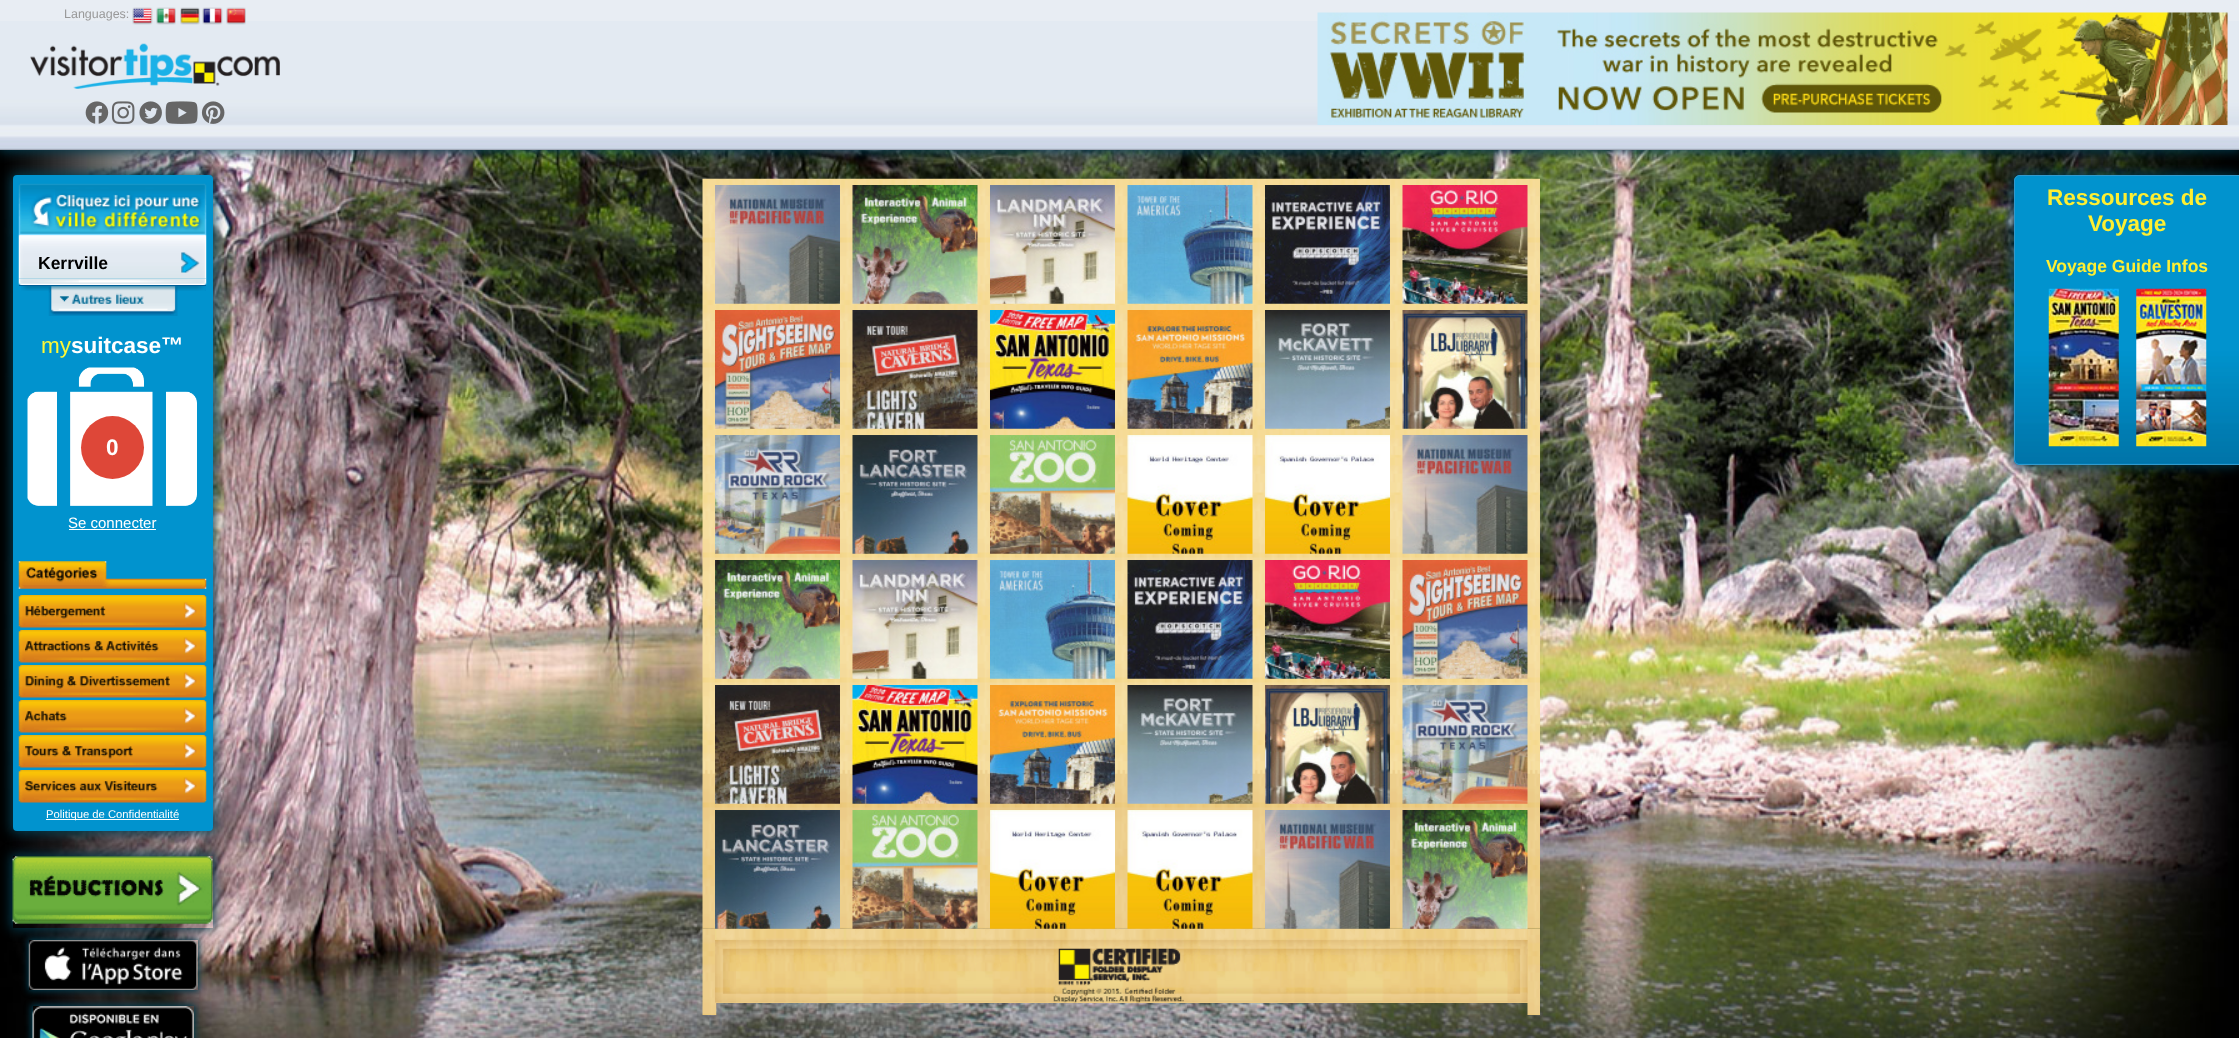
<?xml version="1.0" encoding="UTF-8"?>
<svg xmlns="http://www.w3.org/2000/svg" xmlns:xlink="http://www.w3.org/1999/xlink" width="2239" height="1038">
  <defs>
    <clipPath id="clip1"><path d="M 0 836 h 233 v 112 h -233 z m 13 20 h 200 v 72 h -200 z" clip-rule="evenodd" /></clipPath>
    <clipPath id="clip2"><path d="M 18 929 h 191 v 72 h -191 z m 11 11 h 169 v 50 h -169 z" clip-rule="evenodd" /></clipPath>
    <clipPath id="clip3"><path d="M 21 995 h 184 v 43 h -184 z m 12 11 h 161 v 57 h -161 z" clip-rule="evenodd" /></clipPath>
  </defs>
  <rect width="100%" height="100%" fill="#ffffff" />
  <image x="0" y="150" width="2239" height="888" xlink:href="image14.png" />
  <rect x="-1" y="-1" width="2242" height="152" fill="#003c50" filter="blur(6px)" />
  <rect width="2239" height="21" fill="#e8edf3" />
  <image x="0" y="21" width="2239" height="129" xlink:href="image1.png" />
  <image x="132" y="7" width="21" height="18" xlink:href="image2.png" />
  <image x="156" y="7" width="20" height="18" xlink:href="image3.png" />
  <image x="180" y="7" width="20" height="18" xlink:href="image4.png" />
  <image x="202" y="7" width="21" height="18" xlink:href="image5.png" />
  <image x="226" y="7" width="20" height="18" xlink:href="image6.png" />
  <rect x="2227" y="13" width="1" height="112" fill="#e1e1e1" />
  <image x="1317" y="12" width="911" height="113" xlink:href="image7.png" />
  <image x="30" y="43" width="250" height="46" xlink:href="image8.png" />
  <image x="85" y="101" width="24" height="23" xlink:href="image9.png" />
  <image x="111" y="101" width="24" height="23" xlink:href="image10.png" />
  <image x="139" y="101" width="23" height="23" xlink:href="image11.png" />
  <image x="165" y="101" width="33" height="23" xlink:href="image12.png" />
  <image x="201" y="101" width="24" height="23" xlink:href="image13.png" />
  <image x="702" y="178" width="838" height="751" xlink:href="image15.png" />
  <image x="715" y="185" width="125" height="119" xlink:href="image16.png" />
  <image x="852" y="185" width="126" height="119" xlink:href="image17.png" />
  <image x="990" y="185" width="125" height="119" xlink:href="image18.png" />
  <image x="1127" y="185" width="126" height="119" xlink:href="image19.png" />
  <image x="1265" y="185" width="125" height="119" xlink:href="image20.png" />
  <image x="1402" y="185" width="126" height="119" xlink:href="image21.png" />
  <image x="715" y="310" width="125" height="119" xlink:href="image22.png" />
  <image x="852" y="310" width="126" height="119" xlink:href="image23.png" />
  <image x="990" y="310" width="125" height="119" xlink:href="image24.png" />
  <image x="1127" y="310" width="126" height="119" xlink:href="image25.png" />
  <image x="1265" y="310" width="125" height="119" xlink:href="image26.png" />
  <image x="1402" y="310" width="126" height="119" xlink:href="image27.png" />
  <image x="715" y="435" width="125" height="119" xlink:href="image28.png" />
  <image x="852" y="435" width="126" height="119" xlink:href="image29.png" />
  <image x="990" y="435" width="125" height="119" xlink:href="image30.png" />
  <image x="1127" y="435" width="126" height="119" xlink:href="image31.png" />
  <image x="1265" y="435" width="125" height="119" xlink:href="image32.png" />
  <image x="1402" y="435" width="126" height="119" xlink:href="image33.png" />
  <image x="715" y="560" width="125" height="119" xlink:href="image34.png" />
  <image x="852" y="560" width="126" height="119" xlink:href="image35.png" />
  <image x="990" y="560" width="125" height="119" xlink:href="image36.png" />
  <image x="1127" y="560" width="126" height="119" xlink:href="image37.png" />
  <image x="1265" y="560" width="125" height="119" xlink:href="image38.png" />
  <image x="1402" y="560" width="126" height="119" xlink:href="image39.png" />
  <image x="715" y="685" width="125" height="119" xlink:href="image40.png" />
  <image x="852" y="685" width="126" height="119" xlink:href="image41.png" />
  <image x="990" y="685" width="125" height="119" xlink:href="image42.png" />
  <image x="1127" y="685" width="126" height="119" xlink:href="image43.png" />
  <image x="1265" y="685" width="125" height="119" xlink:href="image44.png" />
  <image x="1402" y="685" width="126" height="119" xlink:href="image45.png" />
  <image x="702" y="928" width="15" height="87" xlink:href="image52.png" />
  <image x="1527" y="929" width="13" height="86" xlink:href="image53.png" />
  <rect x="715" y="929" width="813" height="74" fill="#eecd86" />
  <image x="715" y="928" width="813" height="75" xlink:href="image54.png" />
  <image x="715" y="810" width="125" height="119" xlink:href="image46.png" />
  <image x="852" y="810" width="126" height="119" xlink:href="image47.png" />
  <image x="990" y="810" width="125" height="119" xlink:href="image48.png" />
  <image x="1127" y="810" width="126" height="119" xlink:href="image49.png" />
  <image x="1265" y="810" width="125" height="119" xlink:href="image50.png" />
  <image x="1402" y="810" width="126" height="119" xlink:href="image51.png" />
  <image x="715" y="940" width="21" height="63" xlink:href="image55.png" />
  <image x="1507" y="940" width="21" height="63" xlink:href="image56.png" />
  <image x="1053" y="948" width="131" height="55" xlink:href="image57.png" />
  <rect x="2013" y="174" width="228" height="292" rx="8" fill="#003c50" filter="blur(6px)" />
  <path d="M 2020 175 h 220 v 290 h -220 c -3.5 0 -6 -2.5 -6 -6 v -278 c 0 -3.5 2.5 -6 6 -6 z" fill="#0193ce" />
  <image x="2013" y="351" width="226" height="113" xlink:href="image58.png" />
  <path d="M 2020 175 h 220 v 290 h -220 c -3 0 -6 -3 -6 -6 v -278 c 0 -3 3 -6 6 -6 z m 0 1 h 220 v 288 h -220 c -3 0 -5 -2 -5 -5 v -278 c 0 -3 2 -5 5 -5 z" fill="#3399cc" fill-rule="evenodd" />
  <image x="2048" y="288" width="71" height="159" xlink:href="image59.png" />
  <image x="2136" y="288" width="71" height="159" xlink:href="image60.png" />
  <rect x="11" y="174" width="203" height="659" rx="5" fill="#003c50" filter="blur(6px)" />
  <rect x="14.5" y="176.5" width="197" height="653" rx="2.5" fill="#0193ce" stroke="#0193ce" stroke-width="3" />
  <image x="18" y="278" width="189" height="7" xlink:href="image61.png" />
  <image x="18" y="183" width="189" height="96" xlink:href="image62.png" />
  <image x="181" y="252" width="19" height="21" xlink:href="image63.png" />
  <image x="21" y="286" width="185" height="5" xlink:href="image64.png" />
  <rect x="19" y="285" width="187" height="1" fill="#005e97" />
  <image x="48" y="286" width="130" height="30" xlink:href="image65.png" />
  <image x="27" y="367" width="170" height="139" xlink:href="image66.png" />
  <circle cx="112.5" cy="447.5" r="31.5" fill="#de4738" />
  <rect x="69" y="529" width="87" height="1" fill="#ffffff" />
  <image x="18" y="561" width="189" height="28" xlink:href="image67.png" />
  <image x="18" y="595" width="189" height="33" xlink:href="image68.png" />
  <image x="25" y="606" width="81" height="13" xlink:href="image69.png" />
  <image x="18" y="630" width="189" height="33" xlink:href="image68.png" />
  <image x="25" y="641" width="134" height="11" xlink:href="image70.png" />
  <image x="18" y="665" width="189" height="33" xlink:href="image68.png" />
  <image x="25" y="676" width="145" height="13" xlink:href="image71.png" />
  <image x="18" y="700" width="189" height="33" xlink:href="image68.png" />
  <image x="25" y="711" width="42" height="11" xlink:href="image72.png" />
  <image x="18" y="735" width="189" height="33" xlink:href="image68.png" />
  <image x="25" y="746" width="108" height="13" xlink:href="image73.png" />
  <image x="18" y="770" width="189" height="33" xlink:href="image68.png" />
  <image x="25" y="781" width="133" height="11" xlink:href="image74.png" />
  <rect x="46" y="819" width="133" height="1" fill="#ffffff" />
  <g clip-path="url(#clip1)">
    <rect x="11" y="855" width="203" height="74" fill="#003c50" filter="blur(6px)" />
  </g>
  <image x="12" y="856" width="201" height="68" xlink:href="image75.png" />
  <g clip-path="url(#clip2)">
    <rect x="28" y="939" width="171" height="52" fill="#003c50" filter="blur(3px)" />
  </g>
  <image x="28" y="940" width="170" height="50" xlink:href="image76.png" />
  <g clip-path="url(#clip3)">
    <rect x="31" y="1005" width="164" height="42" fill="#003c50" filter="blur(3px)" />
  </g>
  <image x="32" y="1006" width="162" height="32" xlink:href="image77.png" />
  <text x="64" y="18" style="font-family: Liberation Sans; font-size: 12.5px; fill: #999999">Languages:</text>
  <text x="2047" y="205" style="font-family: Liberation Sans; font-size: 22.5px; font-weight: bold; fill: #feef32">Ressources de</text>
  <text x="2088" y="231" style="font-family: Liberation Sans; font-size: 22.5px; font-weight: bold; fill: #feef32">Voyage</text>
  <text x="2046" y="272" style="font-family: Liberation Sans; font-size: 17.5px; font-weight: bold; fill: #feef32">Voyage Guide Infos</text>
  <text x="38" y="269" style="font-family: Liberation Sans; font-size: 17.5px; font-weight: bold; fill: #000000">Kerrville</text>
  <text x="41" y="353" style="font-family: Liberation Sans; font-size: 22.5px; fill: #fff835">my</text>
  <text x="71" y="353" style="font-family: Liberation Sans; font-size: 22.5px; font-weight: bold; fill: #ffffff">suitcase™</text>
  <text x="106" y="455" style="font-family: Liberation Sans; font-size: 22.5px; font-weight: bold; fill: #ffffff">0</text>
  <text x="68" y="528" style="font-family: Liberation Sans; font-size: 15px; fill: #ffffff">Se connecter</text>
  <text x="46" y="818" style="font-family: Liberation Sans; font-size: 11.25px; fill: #ffffff">Politique de Confidentialité</text>
</svg>
